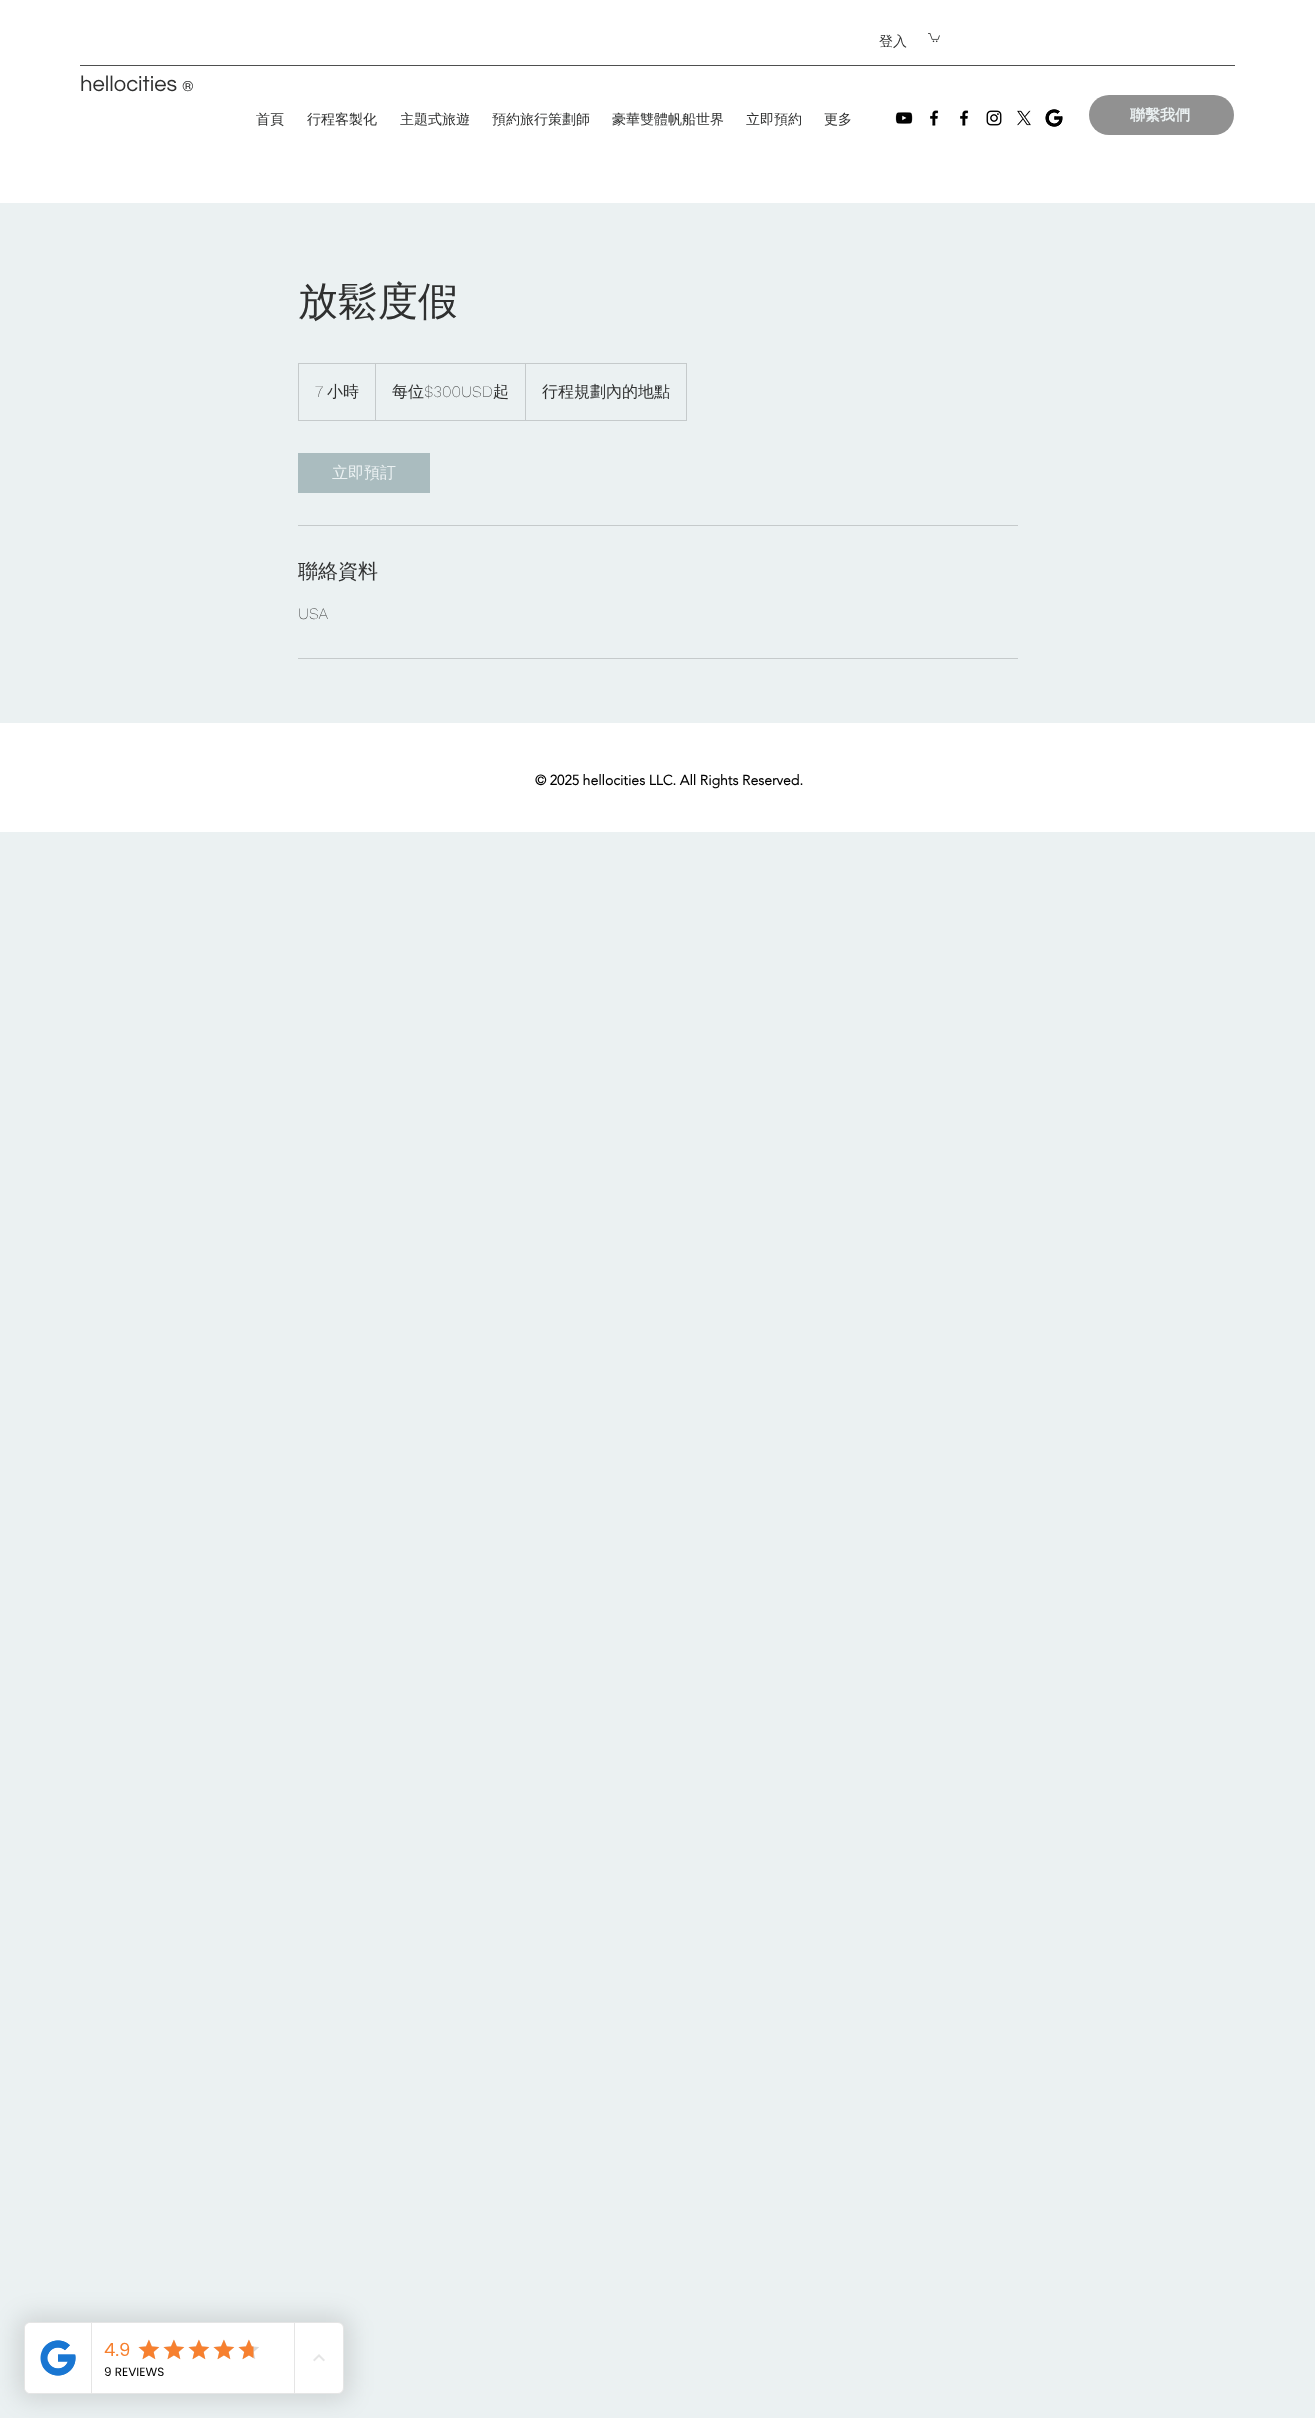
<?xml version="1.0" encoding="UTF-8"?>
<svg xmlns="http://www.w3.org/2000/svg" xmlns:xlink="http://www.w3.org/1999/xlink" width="1315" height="2418">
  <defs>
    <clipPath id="clip1"><rect x="1130" y="106" width="60" height="19" /></clipPath>
  </defs>
  <rect width="100%" height="100%" fill="#ebf1f2" />
  <rect width="1315" height="203" fill="#ffffff" />
  <image x="928" y="33" width="12" height="10" xlink:href="image1.png" />
  <rect x="80" y="65" width="1155" height="1" fill="#4e4f4f" />
  <image x="895" y="112" width="18" height="12" xlink:href="image2.png" />
  <image x="930" y="110" width="9" height="16" xlink:href="image3.png" />
  <image x="960" y="110" width="9" height="16" xlink:href="image3.png" />
  <image x="986" y="110" width="16" height="16" xlink:href="image4.png" />
  <image x="1017" y="110" width="14" height="16" xlink:href="image5.png" />
  <image x="1045" y="109" width="18" height="18" xlink:href="image6.png" />
  <rect x="1089" y="95" width="145" height="40" rx="20" fill="#919191" />
  <rect x="298.5" y="363.5" width="388" height="57" fill="none" stroke="#c5cacb" />
  <path d="M 375 420 v -57 l 1 1 v 56 z" fill="#c5cacb" />
  <path d="M 525 420 v -57 l 1 1 v 56 z" fill="#c5cacb" />
  <rect x="298" y="453" width="132" height="40" fill="#aabcbf" />
  <rect x="298" y="525" width="720" height="1" fill="#c5cacb" />
  <rect x="298" y="658" width="720" height="1" fill="#c5cacb" />
  <rect y="723" width="1315" height="109" fill="#ffffff" />
  <rect x="18" y="2316" width="332" height="84" rx="12" fill="#000000" fill-opacity="0.12" filter="blur(12px)" />
  <rect x="24.5" y="2322.5" width="319" height="71" rx="5.5" fill="#ffffff" stroke="#e5e5e5" />
  <path d="M 31 2323 h 61 v 70 h -61 c -3.5 0 -6 -2.5 -6 -6 v -58 c 0 -3.5 2.5 -6 6 -6 z" fill="#ffffff" />
  <rect x="91" y="2323" width="1" height="70" fill="#e5e5e5" />
  <image x="40" y="2340" width="36" height="36" xlink:href="image7.png" />
  <rect x="294" y="2323" width="1" height="70" fill="#e5e5e5" />
  <image x="138" y="2340" width="21" height="19" xlink:href="image9.png" />
  <image x="138" y="2339" width="22" height="21" xlink:href="image8.png" />
  <image x="163" y="2340" width="21" height="19" xlink:href="image9.png" />
  <image x="163" y="2339" width="22" height="21" xlink:href="image8.png" />
  <image x="188" y="2340" width="21" height="19" xlink:href="image9.png" />
  <image x="188" y="2339" width="22" height="21" xlink:href="image8.png" />
  <image x="213" y="2340" width="21" height="19" xlink:href="image9.png" />
  <image x="213" y="2339" width="22" height="21" xlink:href="image8.png" />
  <image x="238" y="2340" width="21" height="19" xlink:href="image9.png" />
  <image x="238" y="2339" width="16" height="21" xlink:href="image10.png" />
  <image x="313" y="2354" width="12" height="8" xlink:href="image11.png" />
  <text x="879" y="46" style="font-family: WenQuanYi Zen Hei; font-size: 14px; font-weight: 500; fill: #2f3030">登入</text>
  <text x="80" y="91" style="font-family: Questrial; font-size: 22px; fill: #2f3030">hellocities</text>
  <text x="182" y="91" style="font-family: Questrial; font-size: 15px; fill: #2f3030">®</text>
  <text x="256" y="124" style="font-family: WenQuanYi Zen Hei; font-size: 14px; font-weight: 500; fill: #2f3030">首頁</text>
  <text x="307" y="124" style="font-family: WenQuanYi Zen Hei; font-size: 14px; font-weight: 500; fill: #2f3030">行程客製化</text>
  <text x="400" y="124" style="font-family: WenQuanYi Zen Hei; font-size: 14px; font-weight: 500; fill: #2f3030">主題式旅遊</text>
  <text x="492" y="124" style="font-family: WenQuanYi Zen Hei; font-size: 14px; font-weight: 500; fill: #2f3030">預約旅行策劃師</text>
  <text x="612" y="124" style="font-family: WenQuanYi Zen Hei; font-size: 14px; font-weight: 500; fill: #2f3030">豪華雙體帆船世界</text>
  <text x="746" y="124" style="font-family: WenQuanYi Zen Hei; font-size: 14px; font-weight: 500; fill: #2f3030">立即預約</text>
  <text x="824" y="124" style="font-family: WenQuanYi Zen Hei; font-size: 14px; font-weight: 500; fill: #2f3030">更多</text>
  <g clip-path="url(#clip1)">
    <text x="1130" y="120" style="font-family: WenQuanYi Zen Hei; font-size: 15px; font-weight: bold; fill: #ebf1f2">聯繫我們</text>
  </g>
  <text x="298" y="315" style="font-family: WenQuanYi Zen Hei; font-size: 40px; font-weight: 500; fill: #2f3030">放鬆度假</text>
  <text x="315" y="397" style="font-family: Work Sans; font-size: 16px; font-weight: 200; fill: #2f3030">7</text>
  <text x="327" y="397" style="font-family: WenQuanYi Zen Hei; font-size: 16px; font-weight: 500; fill: #2f3030">小時</text>
  <text x="392" y="397" style="font-family: WenQuanYi Zen Hei; font-size: 16px; font-weight: 500; fill: #2f3030">每位</text>
  <text x="424" y="397" style="font-family: Work Sans; font-size: 16px; font-weight: 200; fill: #2f3030">$300USD</text>
  <text x="493" y="397" style="font-family: WenQuanYi Zen Hei; font-size: 16px; font-weight: 500; fill: #2f3030">起</text>
  <text x="542" y="397" style="font-family: WenQuanYi Zen Hei; font-size: 16px; font-weight: 500; fill: #2f3030">行程規劃內的地點</text>
  <text x="332" y="478" style="font-family: WenQuanYi Zen Hei; font-size: 16px; font-weight: 500; fill: #ebf1f2">立即預訂</text>
  <text x="298" y="578" style="font-family: WenQuanYi Zen Hei; font-size: 20px; font-weight: 500; fill: #2f3030">聯絡資料</text>
  <text x="298" y="619" style="font-family: Work Sans; font-size: 16px; font-weight: 200; fill: #2f3030">USA</text>
  <text x="535" y="785" style="font-family: 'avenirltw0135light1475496'; font-size: 14px; font-weight: bold; fill: #000000">© 2025 hellocities LLC. All Rights Reserved.</text>
  <text x="104" y="2356" style="font-family: Poppins; font-size: 18px; fill: #f7802f">4.9</text>
  <text x="104" y="2376" style="font-family: Poppins; font-size: 12px; fill: #000000">9 REVIEWS</text>
</svg>
